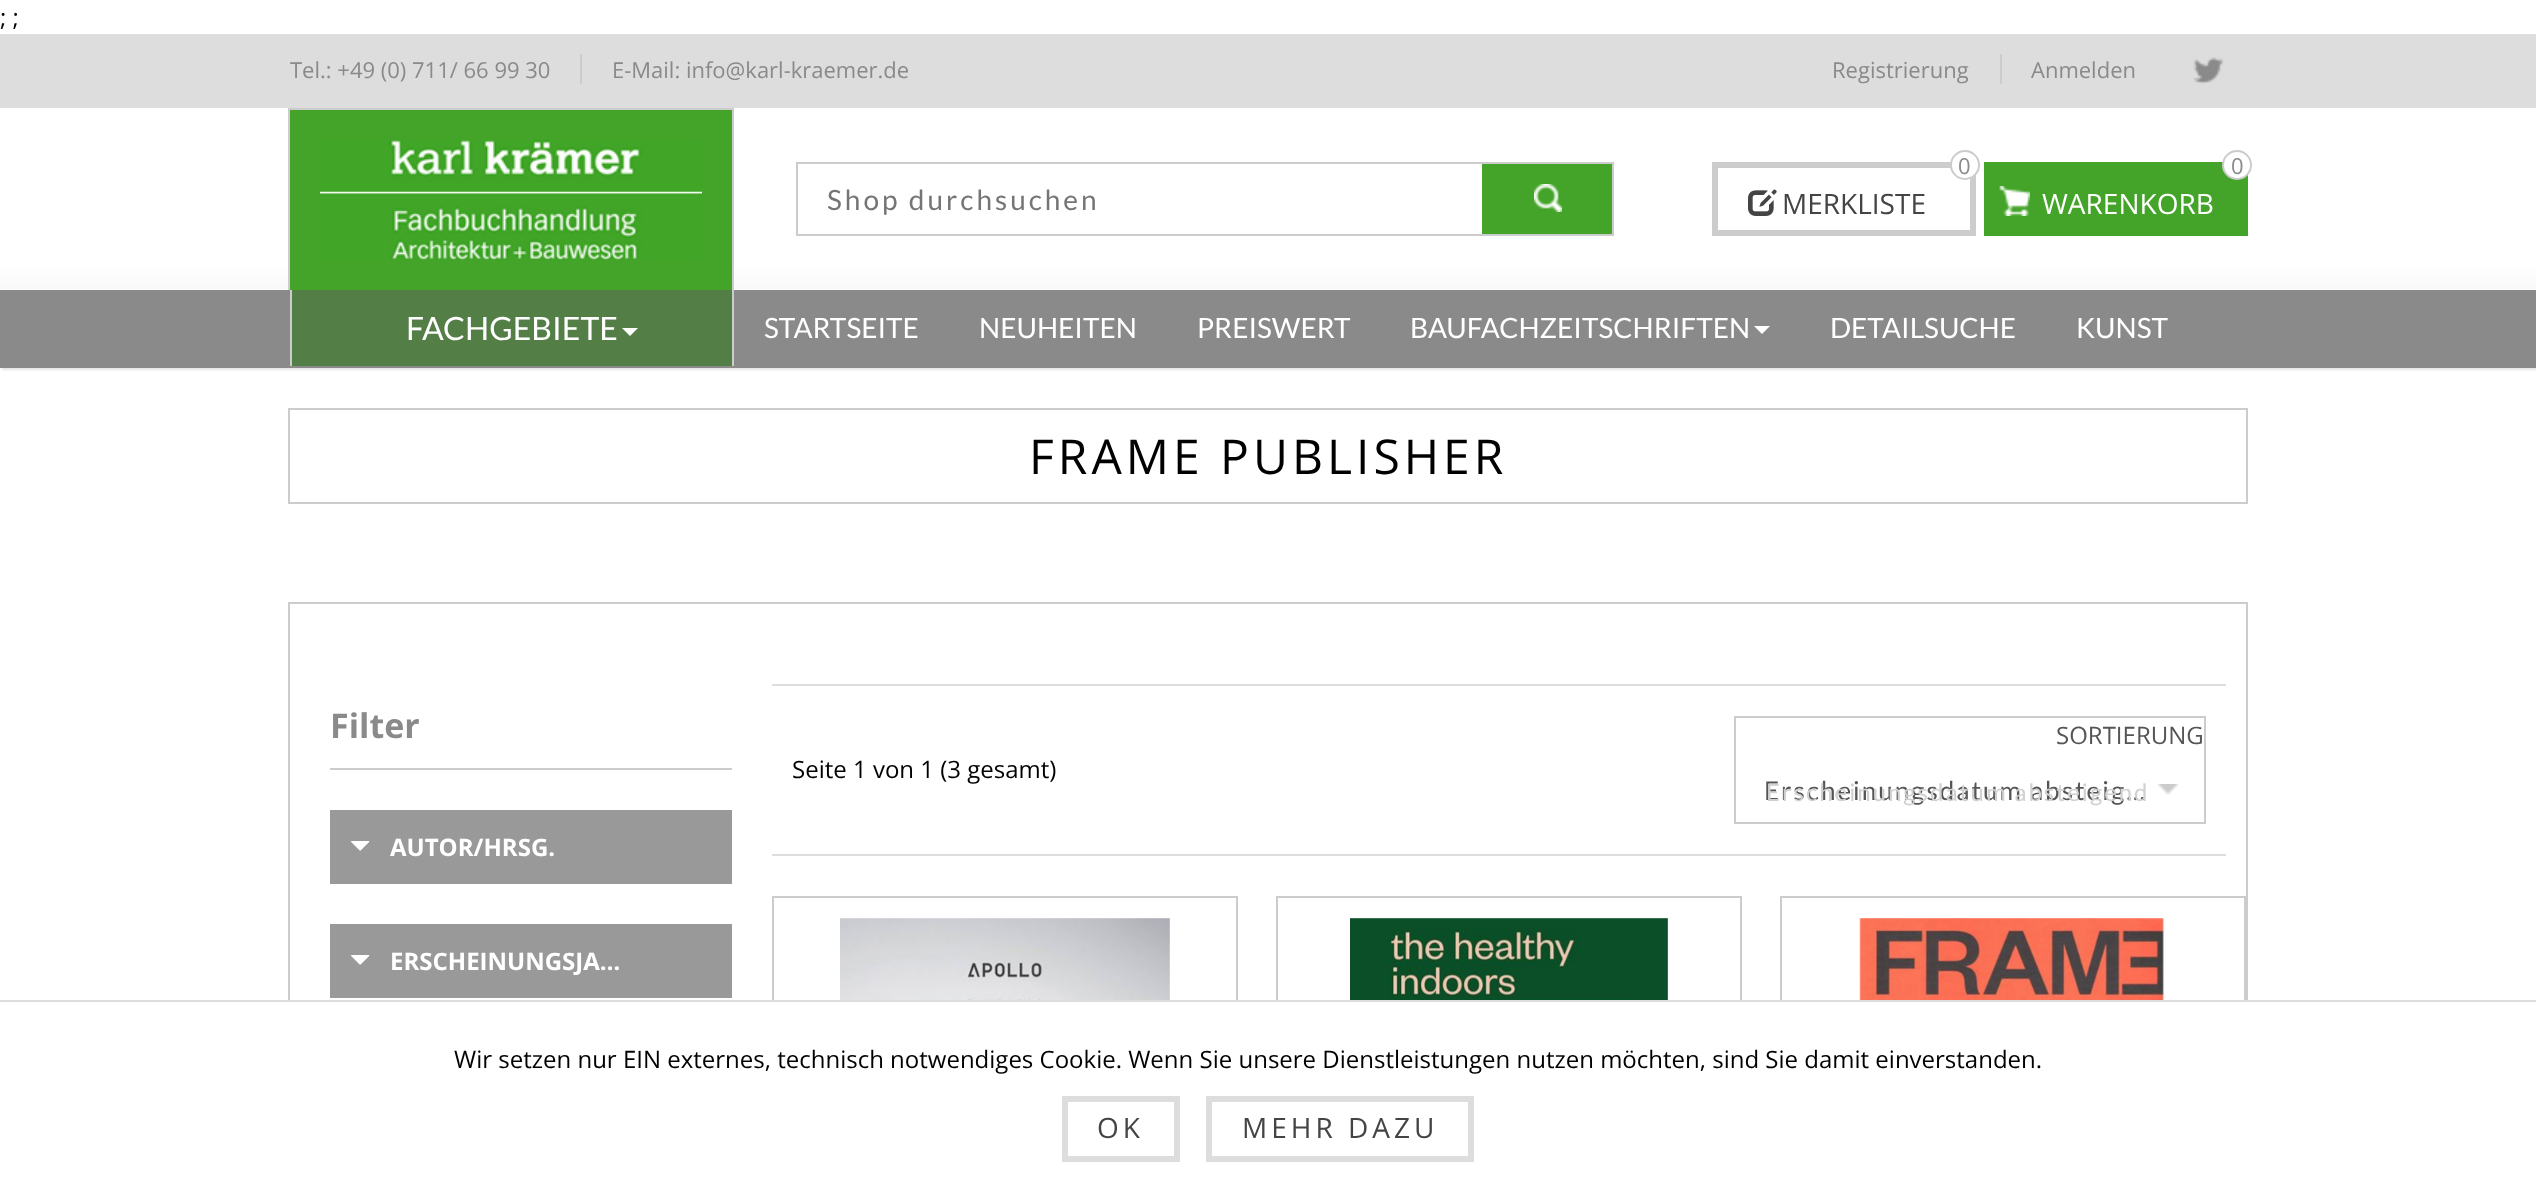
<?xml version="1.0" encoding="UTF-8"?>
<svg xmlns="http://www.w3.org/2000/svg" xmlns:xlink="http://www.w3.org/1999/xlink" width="2536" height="1202">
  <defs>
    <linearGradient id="g1" gradientUnits="userSpaceOnUse" x1="1268" y1="70" x2="1268" y2="330"><stop offset="0.75" stop-color="#ffffff" /><stop offset="1" stop-color="#efefef" /></linearGradient>
  </defs>
  <rect width="100%" height="100%" fill="#ffffff" />
  <rect y="34" width="2536" height="74" fill="#dddddd" />
  <rect x="580" y="54" width="2" height="30" fill="#cccccc" />
  <rect x="2000" y="54" width="2" height="30" fill="#cccccc" />
  <image x="2193" y="57" width="31" height="27" xlink:href="image1.png" />
  <rect x="2" y="110" width="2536" height="260" fill="#000000" fill-opacity="0.1" filter="blur(1px)" />
  <rect y="109" width="2536" height="181" fill="url(#g1)" />
  <rect x="290" y="110" width="442" height="180" fill="#44a429" />
  <rect x="288" y="108" width="446" height="2" fill="#cccccc" />
  <rect y="290" width="2536" height="78" fill="#8a8a8a" />
  <rect x="732" y="108" width="2" height="258" fill="#cccccc" />
  <rect x="288" y="108" width="2" height="182" fill="#cccccc" />
  <image x="320" y="140" width="382" height="120" xlink:href="image2.png" />
  <rect x="797" y="163" width="816" height="72" fill="none" stroke="#cccccc" stroke-width="2" />
  <rect x="1482" y="164" width="130" height="70" fill="#44a429" />
  <image x="1534" y="184" width="28" height="28" xlink:href="image3.png" />
  <rect x="1715" y="165" width="258" height="68" fill="none" stroke="#cccccc" stroke-width="6" />
  <circle cx="1965" cy="165" r="14" fill="#ffffff" stroke="#cccccc" stroke-width="2" />
  <image x="1748" y="189" width="29" height="27" xlink:href="image4.png" />
  <rect x="1984" y="162" width="264" height="74" fill="#44a429" />
  <image x="1999" y="186" width="31" height="30" xlink:href="image5.png" />
  <circle cx="2237" cy="165" r="14" fill="#ffffff" stroke="#cccccc" stroke-width="2" />
  <rect x="292" y="290" width="440" height="76" fill="#537f47" />
  <rect x="290" y="290" width="2" height="76" fill="#cccccc" />
  <path d="M 622 328 h 16 l -8 8 z" fill="#ffffff" />
  <path d="M 1754 326 h 16 l -8 8 z" fill="#ffffff" />
  <image x="2158" y="784" width="20" height="10" xlink:href="image6.png" />
  <rect x="289" y="603" width="1958" height="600" fill="none" stroke="#cccccc" stroke-width="2" />
  <rect x="289" y="409" width="1958" height="94" fill="none" stroke="#cccccc" stroke-width="2" />
  <rect x="772" y="684" width="1454" height="2" fill="#dddddd" />
  <rect x="772" y="854" width="1454" height="2" fill="#dddddd" />
  <rect x="1735" y="717" width="470" height="106" fill="none" stroke="#cccccc" stroke-width="2" />
  <rect x="773" y="897" width="464" height="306" fill="none" stroke="#cccccc" stroke-width="2" />
  <image x="840" y="918" width="330" height="82" xlink:href="image7.png" />
  <rect x="1277" y="897" width="464" height="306" fill="none" stroke="#cccccc" stroke-width="2" />
  <image x="1350" y="918" width="318" height="82" xlink:href="image8.png" />
  <rect x="1781" y="897" width="464" height="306" fill="none" stroke="#cccccc" stroke-width="2" />
  <image x="1859" y="918" width="307" height="82" xlink:href="image9.png" />
  <rect x="330" y="768" width="402" height="2" fill="#cccccc" />
  <rect x="330" y="810" width="402" height="74" fill="#999999" />
  <image x="351" y="841" width="19" height="10" xlink:href="image10.png" />
  <rect x="330" y="924" width="402" height="74" fill="#999999" />
  <image x="351" y="955" width="19" height="10" xlink:href="image10.png" />
  <rect x="288" y="1002" width="1960" height="200" fill="#ffffff" />
  <rect y="1000" width="2536" height="2" fill="#dddddd" />
  <rect x="1065" y="1099" width="112" height="60" fill="none" stroke="#dddddd" stroke-width="6" />
  <rect x="1209" y="1099" width="262" height="60" fill="none" stroke="#dddddd" stroke-width="6" />
  <text x="0" y="26" style="font-family: Open Sans; font-size: 24px; fill: #000000">; ;</text>
  <text x="290" y="78" style="font-family: Open Sans; font-size: 22px; fill: #8a8a8a">Tel.: +49 (0) 711/ 66 99 30</text>
  <text x="612" y="78" style="font-family: Open Sans; font-size: 22px; fill: #8a8a8a">E-Mail: info@karl-kraemer.de</text>
  <text x="1832" y="78" style="font-family: Open Sans; font-size: 22px; fill: #8a8a8a">Registrierung</text>
  <text x="2031" y="78" style="font-family: Open Sans; font-size: 22px; fill: #8a8a8a">Anmelden</text>
  <text x="827" y="210" style="font-family: Lato; font-size: 28px; letter-spacing: 3px; fill: #757575">Shop durchsuchen</text>
  <text x="1958" y="174" style="font-family: Open Sans; font-size: 22px; fill: #8a8a8a">0</text>
  <text x="1782" y="214" style="font-family: Open Sans; font-size: 28px; fill: #444444">MERKLISTE</text>
  <text x="2231" y="174" style="font-family: Open Sans; font-size: 22px; fill: #8a8a8a">0</text>
  <text x="2042" y="214" style="font-family: Open Sans; font-size: 28px; fill: #ffffff">WARENKORB</text>
  <text x="406" y="340" style="font-family: Lato; font-size: 32px; fill: #ffffff">FACHGEBIETE</text>
  <text x="764" y="338" style="font-family: Lato; font-size: 28px; fill: #ffffff">STARTSEITE</text>
  <text x="979" y="338" style="font-family: Lato; font-size: 28px; fill: #ffffff">NEUHEITEN</text>
  <text x="1197" y="338" style="font-family: Lato; font-size: 28px; fill: #ffffff">PREISWERT</text>
  <text x="1410" y="338" style="font-family: Lato; font-size: 28px; fill: #ffffff">BAUFACHZEITSCHRIFTEN</text>
  <text x="1830" y="338" style="font-family: Lato; font-size: 28px; fill: #ffffff">DETAILSUCHE</text>
  <text x="2076" y="338" style="font-family: Lato; font-size: 28px; fill: #ffffff">KUNST</text>
  <text x="1029" y="474" style="font-family: Open Sans; font-size: 48px; letter-spacing: 4px; fill: #000000">FRAME PUBLISHER</text>
  <text x="792" y="778" style="font-family: Open Sans; font-size: 24px; fill: #000000">Seite 1 von 1 (3 gesamt)</text>
  <text x="2056" y="744" style="font-family: Open Sans; font-size: 24px; fill: #555555">SORTIERUNG</text>
  <text x="1764" y="800" style="font-family: Lato; font-size: 26px; letter-spacing: 2px; fill: #555555">Erscheinungsdatum absteig…</text>
  <text x="1766" y="801" style="font-family: Lato; font-size: 24px; letter-spacing: 2px; fill: #d1d1d1">Erscheinungsdatum absteigend</text>
  <text x="330" y="738" style="font-family: Open Sans; font-size: 34px; font-weight: bold; fill: #8a8a8a">Filter</text>
  <text x="390" y="856" style="font-family: Open Sans; font-size: 24px; font-weight: bold; fill: #ffffff">AUTOR/HRSG.</text>
  <text x="390" y="970" style="font-family: Open Sans; font-size: 24px; font-weight: bold; fill: #ffffff">ERSCHEINUNGSJA…</text>
  <text x="454" y="1068" style="font-family: Open Sans; font-size: 24px; fill: #000000">Wir setzen nur EIN externes, technisch notwendiges Cookie. Wenn Sie unsere Dienstleistungen nutzen möchten, sind Sie damit einverstanden.</text>
  <text x="1097" y="1138" style="font-family: Open Sans; font-size: 28px; letter-spacing: 4px; fill: #444444">OK</text>
  <text x="1242" y="1138" style="font-family: Open Sans; font-size: 28px; letter-spacing: 4px; fill: #444444">MEHR DAZU</text>
</svg>
